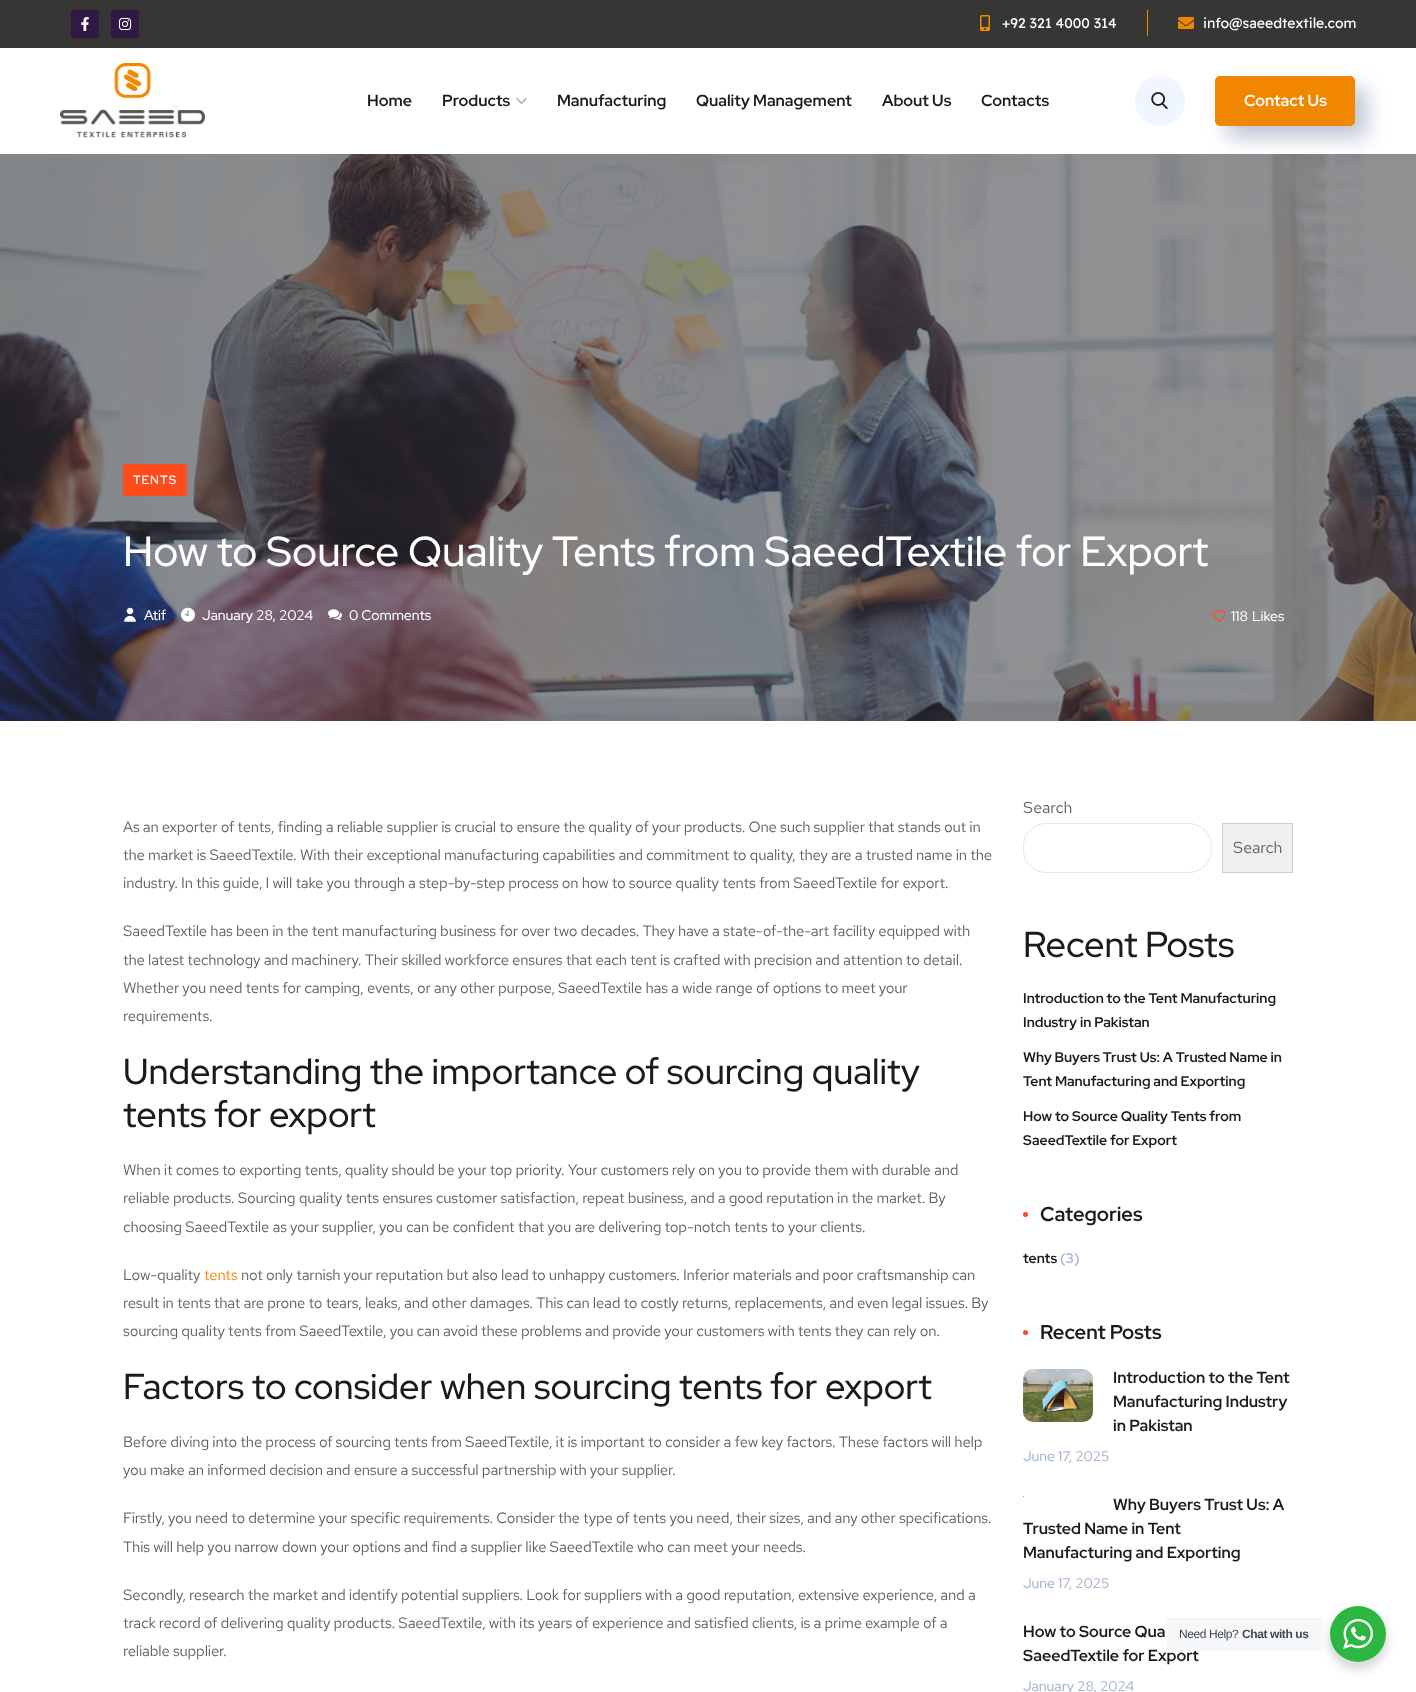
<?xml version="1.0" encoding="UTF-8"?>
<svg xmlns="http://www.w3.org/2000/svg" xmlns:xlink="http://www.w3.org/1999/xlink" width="1416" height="1692">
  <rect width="100%" height="100%" fill="#ffffff" />
  <rect width="1416" height="48" fill="#363635" />
  <rect x="71" y="10" width="28" height="28" rx="3" fill="#311945" />
  <image x="81" y="17" width="8" height="14" xlink:href="image1.png" />
  <rect x="111" y="10" width="28" height="28" rx="3" fill="#311945" />
  <image x="118" y="17" width="14" height="14" xlink:href="image2.png" />
  <image x="980" y="15" width="10" height="16" xlink:href="image3.png" />
  <rect x="1147" y="10" width="1" height="26" fill="#f18700" />
  <image x="1178" y="17" width="16" height="12" xlink:href="image4.png" />
  <image x="60" y="63" width="145" height="75" xlink:href="image5.png" />
  <image x="516" y="97" width="11" height="7" xlink:href="image6.png" />
  <circle cx="1160" cy="101" r="25" fill="#f0f6ff" />
  <image x="1151" y="92" width="17" height="18" xlink:href="image7.png" />
  <image x="0" y="154" width="1416" height="567" xlink:href="image8.png" />
  <rect x="1227" y="88" width="140" height="50" rx="5" fill="#2a4371" fill-opacity="0.3" filter="blur(10px)" />
  <rect x="1215" y="76" width="140" height="50" rx="5" fill="#f18700" />
  <rect x="123" y="464" width="64" height="32" rx="3" fill="#fe4c1c" />
  <image x="124" y="607" width="12" height="15" xlink:href="image9.png" />
  <image x="181" y="607" width="14" height="15" xlink:href="image10.png" />
  <image x="328" y="609" width="14" height="12" xlink:href="image11.png" />
  <image x="1213" y="610" width="12" height="13" xlink:href="image12.png" />
  <rect x="1023.5" y="823.5" width="188" height="49" rx="22.5" fill="none" stroke="#e6e6e6" />
  <rect x="1222.5" y="823.5" width="70" height="49" fill="#efefef" stroke="#cccccc" />
  <circle cx="1025.5" cy="1214.5" r="2.5" fill="#fe4c1c" />
  <circle cx="1025.5" cy="1332.5" r="2.5" fill="#fe4c1c" />
  <image x="1023" y="1369" width="70" height="53" xlink:href="image13.png" />
  <rect x="1023" y="1496" width="1" height="1" fill="#9b9ba1" />
  <rect x="1328" y="1610" width="60" height="60" rx="30" fill="#000000" fill-opacity="0.14" filter="blur(4px)" />
  <circle cx="1358" cy="1634" r="28" fill="#2db742" />
  <image x="1343" y="1619" width="30" height="30" xlink:href="image14.png" />
  <text x="1002" y="28" style="font-family: Readex Pro; font-size: 14px; fill: #ffffff">+92 321 4000 314</text>
  <text x="1203" y="28" style="font-family: Readex Pro; font-size: 14px; fill: #ffffff">info@saeedtextile.com</text>
  <text x="367" y="106" style="font-family: Red Hat Display; font-size: 16px; font-weight: bold; fill: #1a1b1e">Home</text>
  <text x="442" y="106" style="font-family: Red Hat Display; font-size: 16px; font-weight: bold; fill: #1a1b1e">Products</text>
  <text x="557" y="106" style="font-family: Red Hat Display; font-size: 16px; font-weight: bold; fill: #1a1b1e">Manufacturing</text>
  <text x="696" y="106" style="font-family: Red Hat Display; font-size: 16px; font-weight: bold; fill: #1a1b1e">Quality Management</text>
  <text x="882" y="106" style="font-family: Red Hat Display; font-size: 16px; font-weight: bold; fill: #1a1b1e">About Us</text>
  <text x="981" y="106" style="font-family: Red Hat Display; font-size: 16px; font-weight: bold; fill: #1a1b1e">Contacts</text>
  <text x="1244" y="106" style="font-family: Red Hat Display; font-size: 16px; font-weight: bold; fill: #ffffff">Contact Us</text>
  <text x="133" y="484" style="font-family: Red Hat Display; font-size: 12px; font-weight: 600; letter-spacing: 1px; fill: #ffffff">TENTS</text>
  <text x="123" y="566" style="font-family: Red Hat Display; font-size: 42px; font-weight: 500; fill: #ffffff">How to Source Quality Tents from SaeedTextile for Export</text>
  <text x="144" y="620" style="font-family: Red Hat Display; font-size: 14px; font-weight: 500; fill: #ffffff">Atif</text>
  <text x="202" y="620" style="font-family: Red Hat Display; font-size: 14px; font-weight: 500; fill: #ffffff">January 28, 2024</text>
  <text x="349" y="620" style="font-family: Red Hat Display; font-size: 14px; font-weight: 500; fill: #ffffff">0 Comments</text>
  <text x="1231" y="621" style="font-family: Red Hat Display; font-size: 14px; font-weight: 500; fill: #ffffff">118</text>
  <text x="1252" y="621" style="font-family: Red Hat Display; font-size: 14px; font-weight: 500; fill: #ffffff">Likes</text>
  <text x="123" y="832" style="font-family: Red Hat Text; font-size: 15px; letter-spacing: -0.2px; fill: #606060">As an exporter of tents, finding a reliable supplier is crucial to ensure the quality of your products. One such supplier that stands out in</text>
  <text x="123" y="860" style="font-family: Red Hat Text; font-size: 15px; letter-spacing: -0.2px; fill: #606060">the market is SaeedTextile. With their exceptional manufacturing capabilities and commitment to quality, they are a trusted name in the</text>
  <text x="123" y="888" style="font-family: Red Hat Text; font-size: 15px; letter-spacing: -0.2px; fill: #606060">industry. In this guide, I will take you through a step-by-step process on how to source quality tents from SaeedTextile for export.</text>
  <text x="123" y="936" style="font-family: Red Hat Text; font-size: 15px; letter-spacing: -0.2px; fill: #606060">SaeedTextile has been in the tent manufacturing business for over two decades. They have a state-of-the-art facility equipped with</text>
  <text x="123" y="965" style="font-family: Red Hat Text; font-size: 15px; letter-spacing: -0.2px; fill: #606060">the latest technology and machinery. Their skilled workforce ensures that each tent is crafted with precision and attention to detail.</text>
  <text x="123" y="993" style="font-family: Red Hat Text; font-size: 15px; letter-spacing: -0.2px; fill: #606060">Whether you need tents for camping, events, or any other purpose, SaeedTextile has a wide range of options to meet your</text>
  <text x="123" y="1021" style="font-family: Red Hat Text; font-size: 15px; letter-spacing: -0.2px; fill: #606060">requirements.</text>
  <text x="123" y="1084" style="font-family: Red Hat Display; font-size: 36px; font-weight: 500; fill: #1a1b1e">Understanding the importance of sourcing quality</text>
  <text x="123" y="1127" style="font-family: Red Hat Display; font-size: 36px; font-weight: 500; fill: #1a1b1e">tents for export</text>
  <text x="123" y="1175" style="font-family: Red Hat Text; font-size: 15px; letter-spacing: -0.2px; fill: #606060">When it comes to exporting tents, quality should be your top priority. Your customers rely on you to provide them with durable and</text>
  <text x="123" y="1203" style="font-family: Red Hat Text; font-size: 15px; letter-spacing: -0.2px; fill: #606060">reliable products. Sourcing quality tents ensures customer satisfaction, repeat business, and a good reputation in the market. By</text>
  <text x="123" y="1232" style="font-family: Red Hat Text; font-size: 15px; letter-spacing: -0.2px; fill: #606060">choosing SaeedTextile as your supplier, you can be confident that you are delivering top-notch tents to your clients.</text>
  <text x="123" y="1280" style="font-family: Red Hat Text; font-size: 15px; letter-spacing: -0.2px; fill: #606060">Low-quality</text>
  <text x="204" y="1280" style="font-family: Red Hat Text; font-size: 15px; letter-spacing: -0.2px; fill: #ff8100">tents</text>
  <text x="241" y="1280" style="font-family: Red Hat Text; font-size: 15px; letter-spacing: -0.2px; fill: #606060">not only tarnish your reputation but also lead to unhappy customers. Inferior materials and poor craftsmanship can</text>
  <text x="123" y="1308" style="font-family: Red Hat Text; font-size: 15px; letter-spacing: -0.2px; fill: #606060">result in tents that are prone to tears, leaks, and other damages. This can lead to costly returns, replacements, and even legal issues. By</text>
  <text x="123" y="1336" style="font-family: Red Hat Text; font-size: 15px; letter-spacing: -0.2px; fill: #606060">sourcing quality tents from SaeedTextile, you can avoid these problems and provide your customers with tents they can rely on.</text>
  <text x="123" y="1399" style="font-family: Red Hat Display; font-size: 36px; font-weight: 500; fill: #1a1b1e">Factors to consider when sourcing tents for export</text>
  <text x="123" y="1447" style="font-family: Red Hat Text; font-size: 15px; letter-spacing: -0.2px; fill: #606060">Before diving into the process of sourcing tents from SaeedTextile, it is important to consider a few key factors. These factors will help</text>
  <text x="123" y="1475" style="font-family: Red Hat Text; font-size: 15px; letter-spacing: -0.2px; fill: #606060">you make an informed decision and ensure a successful partnership with your supplier.</text>
  <text x="123" y="1523" style="font-family: Red Hat Text; font-size: 15px; letter-spacing: -0.2px; fill: #606060">Firstly, you need to determine your specific requirements. Consider the type of tents you need, their sizes, and any other specifications.</text>
  <text x="123" y="1552" style="font-family: Red Hat Text; font-size: 15px; letter-spacing: -0.2px; fill: #606060">This will help you narrow down your options and find a supplier like SaeedTextile who can meet your needs.</text>
  <text x="123" y="1600" style="font-family: Red Hat Text; font-size: 15px; letter-spacing: -0.2px; fill: #606060">Secondly, research the market and identify potential suppliers. Look for suppliers with a good reputation, extensive experience, and a</text>
  <text x="123" y="1628" style="font-family: Red Hat Text; font-size: 15px; letter-spacing: -0.2px; fill: #606060">track record of delivering quality products. SaeedTextile, with its years of experience and satisfied clients, is a prime example of a</text>
  <text x="123" y="1656" style="font-family: Red Hat Text; font-size: 15px; letter-spacing: -0.2px; fill: #606060">reliable supplier.</text>
  <text x="1023" y="813" style="font-family: Red Hat Text; font-size: 16px; fill: #606060">Search</text>
  <text x="1233" y="853" style="font-family: Red Hat Text; font-size: 16px; fill: #606060">Search</text>
  <text x="1023" y="957" style="font-family: Red Hat Display; font-size: 36px; font-weight: 500; fill: #1a1b1e">Recent Posts</text>
  <text x="1023" y="1003" style="font-family: Red Hat Display; font-size: 14px; font-weight: bold; fill: #1a1b1e">Introduction to the Tent Manufacturing</text>
  <text x="1023" y="1027" style="font-family: Red Hat Display; font-size: 14px; font-weight: bold; fill: #1a1b1e">Industry in Pakistan</text>
  <text x="1023" y="1062" style="font-family: Red Hat Display; font-size: 14px; font-weight: bold; fill: #1a1b1e">Why Buyers Trust Us: A Trusted Name in</text>
  <text x="1023" y="1086" style="font-family: Red Hat Display; font-size: 14px; font-weight: bold; fill: #1a1b1e">Tent Manufacturing and Exporting</text>
  <text x="1023" y="1121" style="font-family: Red Hat Display; font-size: 14px; font-weight: bold; fill: #1a1b1e">How to Source Quality Tents from</text>
  <text x="1023" y="1145" style="font-family: Red Hat Display; font-size: 14px; font-weight: bold; fill: #1a1b1e">SaeedTextile for Export</text>
  <text x="1040" y="1221" style="font-family: Red Hat Display; font-size: 20px; font-weight: bold; fill: #1a1b1e">Categories</text>
  <text x="1023" y="1263" style="font-family: Red Hat Display; font-size: 14px; font-weight: bold; fill: #1a1b1e">tents</text>
  <text x="1060" y="1263" style="font-family: Red Hat Display; font-size: 14px; font-weight: bold; fill: #a5b7d2">(3)</text>
  <text x="1040" y="1339" style="font-family: Red Hat Display; font-size: 20px; font-weight: bold; fill: #1a1b1e">Recent Posts</text>
  <text x="1113" y="1383" style="font-family: Red Hat Display; font-size: 16px; font-weight: bold; fill: #1a1b1e">Introduction to the Tent</text>
  <text x="1113" y="1407" style="font-family: Red Hat Display; font-size: 16px; font-weight: bold; fill: #1a1b1e">Manufacturing Industry</text>
  <text x="1113" y="1431" style="font-family: Red Hat Display; font-size: 16px; font-weight: bold; fill: #1a1b1e">in Pakistan</text>
  <text x="1023" y="1461" style="font-family: Red Hat Display; font-size: 14px; font-weight: 500; fill: #a5b7d2">June 17, 2025</text>
  <text x="1113" y="1510" style="font-family: Red Hat Display; font-size: 16px; font-weight: bold; fill: #1a1b1e">Why Buyers Trust Us: A</text>
  <text x="1023" y="1534" style="font-family: Red Hat Display; font-size: 16px; font-weight: bold; fill: #1a1b1e">Trusted Name in Tent</text>
  <text x="1023" y="1558" style="font-family: Red Hat Display; font-size: 16px; font-weight: bold; fill: #1a1b1e">Manufacturing and Exporting</text>
  <text x="1023" y="1588" style="font-family: Red Hat Display; font-size: 14px; font-weight: 500; fill: #a5b7d2">June 17, 2025</text>
  <text x="1023" y="1637" style="font-family: Red Hat Display; font-size: 16px; font-weight: bold; fill: #1a1b1e">How to Source Qua</text>
  <text x="1023" y="1661" style="font-family: Red Hat Display; font-size: 16px; font-weight: bold; fill: #1a1b1e">SaeedTextile for Export</text>
  <text x="1023" y="1691" style="font-family: Red Hat Display; font-size: 14px; font-weight: 500; fill: #a5b7d2">January 28, 2024</text>
  <rect x="1167" y="1617" width="156" height="34" rx="4" fill="#f5f7f9" />
  <text x="1179" y="1638" style="font-family: Liberation Sans; font-size: 12px; letter-spacing: -0.4px; fill: #43474e">Need Help?</text>
  <text x="1242" y="1638" style="font-family: Liberation Sans; font-size: 12px; font-weight: bold; letter-spacing: -0.4px; fill: #43474e">Chat with us</text>
</svg>
